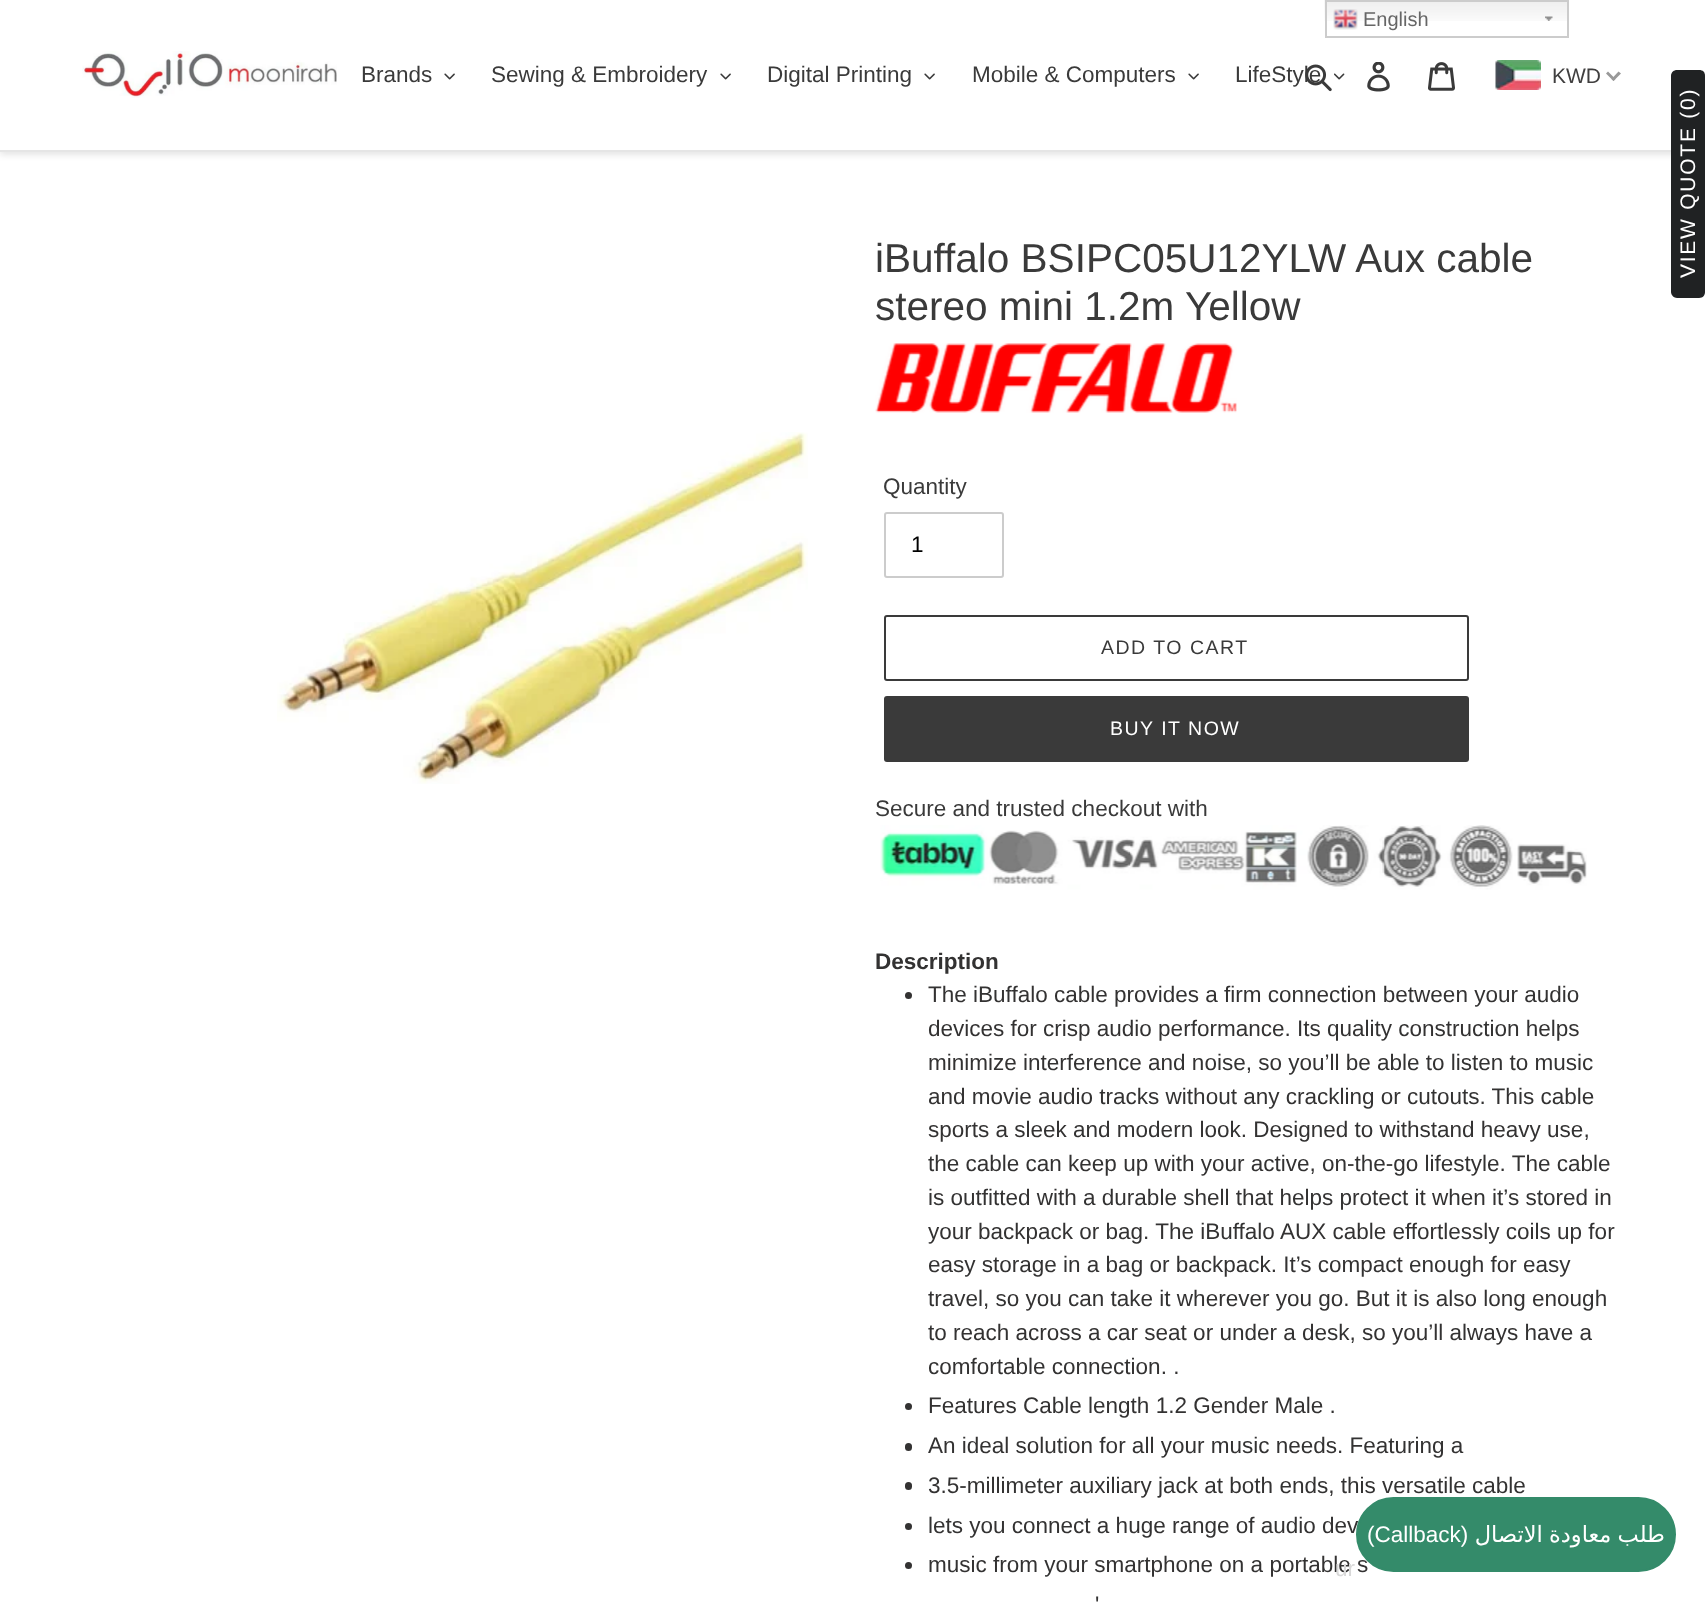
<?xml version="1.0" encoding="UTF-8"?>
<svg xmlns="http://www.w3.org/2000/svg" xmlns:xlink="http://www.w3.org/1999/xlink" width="1705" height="1602">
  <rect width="100%" height="100%" fill="#ffffff" />
  <rect y="3" width="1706" height="152" fill="#000000" fill-opacity="0.1" filter="blur(3px)" />
  <rect width="1705" height="150" fill="#ffffff" />
  <image x="1324" y="0" width="243" height="21" xlink:href="image1.png" />
  <image x="1545" y="16" width="8" height="5" xlink:href="image2.png" />
  <rect x="1326" y="1" width="242" height="36" fill="none" stroke="#cccccc" stroke-width="2" />
  <image x="1333" y="9" width="25" height="21" xlink:href="image3.png" />
  <rect y="150" width="1671" height="2" fill="#e5e5e5" />
  <image x="82" y="51" width="255" height="47" xlink:href="image4.png" />
  <image x="444" y="73" width="11" height="7" xlink:href="image5.png" />
  <image x="720" y="73" width="11" height="7" xlink:href="image5.png" />
  <image x="924" y="73" width="11" height="7" xlink:href="image5.png" />
  <image x="1188" y="73" width="11" height="7" xlink:href="image5.png" />
  <image x="1334" y="73" width="11" height="7" xlink:href="image6.png" />
  <image x="1367" y="62" width="23" height="30" xlink:href="image8.png" />
  <image x="1428" y="62" width="27" height="29" xlink:href="image9.png" />
  <image x="1495" y="60" width="46" height="30" xlink:href="image10.png" />
  <path d="M 1618.5 71.5 l 2.5 2 l -7.5 7.5 l -2 -2 z" fill="#999999" />
  <path d="M 1608 71.5 l 7.5 7.5 l -2 2 l -7.5 -7.5 z" fill="#999999" />
  <path d="M 1671 292 v -216 c 0 -4 3 -6 6 -6 h 22 c 4 0 6 2 6 6 v 216 c 0 3 -2 6 -6 6 h -22 c -3 0 -6 -3 -6 -6 z" fill="#202223" />
  <image x="277" y="432" width="531" height="352" xlink:href="image11.png" />
  <image x="875" y="343" width="362" height="70" xlink:href="image12.png" />
  <rect x="885" y="513" width="118" height="64" rx="2" fill="none" stroke="#cccccc" stroke-width="2" />
  <rect x="885" y="616" width="583" height="64" rx="2" fill="none" stroke="#3a3a3a" stroke-width="2" />
  <rect x="884" y="696" width="585" height="66" rx="3" fill="#3a3a3a" />
  <image x="880" y="825" width="707" height="65" xlink:href="image13.png" />
  <circle cx="908.5" cy="995.5" r="3.5" fill="#333232" />
  <circle cx="908.5" cy="1406.5" r="3.5" fill="#333232" />
  <rect x="905" y="1443" width="7" height="8" rx="3.5" fill="#333232" />
  <rect x="905" y="1482" width="7" height="8" rx="3.5" fill="#333232" />
  <circle cx="908.5" cy="1526.5" r="3.5" fill="#333232" />
  <circle cx="908.5" cy="1565.5" r="3.5" fill="#333232" />
  <text x="1363" y="26" style="font-family: Liberation Sans; font-size: 20px; fill: #666666">English</text>
  <text x="361" y="82" style="font-family: Liberation Sans; font-size: 22.5px; fill: #3a3a3a">Brands</text>
  <text x="491" y="82" style="font-family: Liberation Sans; font-size: 22.5px; fill: #3a3a3a">Sewing &amp; Embroidery</text>
  <text x="767" y="82" style="font-family: Liberation Sans; font-size: 22.5px; fill: #3a3a3a">Digital Printing</text>
  <text x="972" y="82" style="font-family: Liberation Sans; font-size: 22.5px; fill: #3a3a3a">Mobile &amp; Computers</text>
  <text x="1235" y="82" style="font-family: Liberation Sans; font-size: 22.5px; fill: #3a3a3a">LifeStyle</text>
  <image x="1305" y="64" width="27" height="28" xlink:href="image7.png" />
  <text x="1552" y="83" style="font-family: Liberation Sans; font-size: 21px; fill: #403f3f">KWD</text>
  <text x="1695" y="278" transform="rotate(-90 1695 278)" style="font-family: Liberation Sans; font-size: 21px; letter-spacing: 1.75px; fill: #ffffff">VIEW QUOTE (0)</text>
  <text x="875" y="272" style="font-family: Liberation Sans; font-size: 40.5px; fill: #3a3a3a">iBuffalo BSIPC05U12YLW Aux cable</text>
  <text x="875" y="320" style="font-family: Liberation Sans; font-size: 40.5px; fill: #3a3a3a">stereo mini 1.2m Yellow</text>
  <text x="883" y="494" style="font-family: Liberation Sans; font-size: 22.5px; fill: #3a3a3a">Quantity</text>
  <text x="911" y="552" style="font-family: Liberation Sans; font-size: 22.5px; fill: #000000">1</text>
  <text x="1101" y="654" style="font-family: Liberation Sans; font-size: 19.5px; letter-spacing: 1.5px; fill: #3a3a3a">ADD TO CART</text>
  <text x="1110" y="735" style="font-family: Liberation Sans; font-size: 19.5px; letter-spacing: 1.5px; fill: #ffffff">BUY IT NOW</text>
  <text x="875" y="816" style="font-family: Liberation Sans; font-size: 22.5px; fill: #3a3a3a">Secure and trusted checkout with</text>
  <text x="875" y="969" style="font-family: Liberation Sans; font-size: 22.5px; font-weight: bold; fill: #333232">Description</text>
  <text x="928" y="1002" style="font-family: Liberation Sans; font-size: 22.5px; fill: #333232">The iBuffalo cable provides a firm connection between your audio</text>
  <text x="928" y="1036" style="font-family: Liberation Sans; font-size: 22.5px; fill: #333232">devices for crisp audio performance. Its quality construction helps</text>
  <text x="928" y="1070" style="font-family: Liberation Sans; font-size: 22.5px; fill: #333232">minimize interference and noise, so you’ll be able to listen to music</text>
  <text x="928" y="1104" style="font-family: Liberation Sans; font-size: 22.5px; fill: #333232">and movie audio tracks without any crackling or cutouts. This cable</text>
  <text x="928" y="1137" style="font-family: Liberation Sans; font-size: 22.5px; fill: #333232">sports a sleek and modern look. Designed to withstand heavy use,</text>
  <text x="928" y="1171" style="font-family: Liberation Sans; font-size: 22.5px; fill: #333232">the cable can keep up with your active, on-the-go lifestyle. The cable</text>
  <text x="928" y="1205" style="font-family: Liberation Sans; font-size: 22.5px; fill: #333232">is outfitted with a durable shell that helps protect it when it’s stored in</text>
  <text x="928" y="1239" style="font-family: Liberation Sans; font-size: 22.5px; fill: #333232">your backpack or bag. The iBuffalo AUX cable effortlessly coils up for</text>
  <text x="928" y="1272" style="font-family: Liberation Sans; font-size: 22.5px; fill: #333232">easy storage in a bag or backpack. It’s compact enough for easy</text>
  <text x="928" y="1306" style="font-family: Liberation Sans; font-size: 22.5px; fill: #333232">travel, so you can take it wherever you go. But it is also long enough</text>
  <text x="928" y="1340" style="font-family: Liberation Sans; font-size: 22.5px; fill: #333232">to reach across a car seat or under a desk, so you’ll always have a</text>
  <text x="928" y="1374" style="font-family: Liberation Sans; font-size: 22.5px; fill: #333232">comfortable connection. .</text>
  <text x="928" y="1413" style="font-family: Liberation Sans; font-size: 22.5px; fill: #333232">Features Cable length 1.2 Gender Male .</text>
  <text x="928" y="1453" style="font-family: Liberation Sans; font-size: 22.5px; fill: #333232">An ideal solution for all your music needs. Featuring a</text>
  <text x="928" y="1493" style="font-family: Liberation Sans; font-size: 22.5px; fill: #333232">3.5-millimeter auxiliary jack at both ends, this versatile cable</text>
  <text x="928" y="1533" style="font-family: Liberation Sans; font-size: 22.5px; fill: #333232">lets you connect a huge range of audio dev</text>
  <text x="928" y="1572" style="font-family: Liberation Sans; font-size: 22.5px; fill: #333232">music from your smartphone on a portable s</text>
  <text x="1335" y="1576" style="font-family: Liberation Sans; font-size: 22.5px; fill: #d8d8d8">ur</text>
  <text x="1095" y="1612" style="font-family: Liberation Sans; font-size: 22.5px; fill: #333232">'</text>
  <rect x="1357" y="1498" width="318" height="73" rx="36.5" fill="#348b6a" stroke="#348b6a" stroke-width="2" />
  <text x="1367" y="1542" style="font-family: Liberation Sans; font-size: 22.5px; fill: #ffffff">(Callback)</text>
  <text x="1665" y="1542" word-spacing="-1" style="font-family: DejaVu Sans; font-size: 22.5px; direction: rtl; fill: #ffffff">طلب معاودة الاتصال</text>
</svg>
